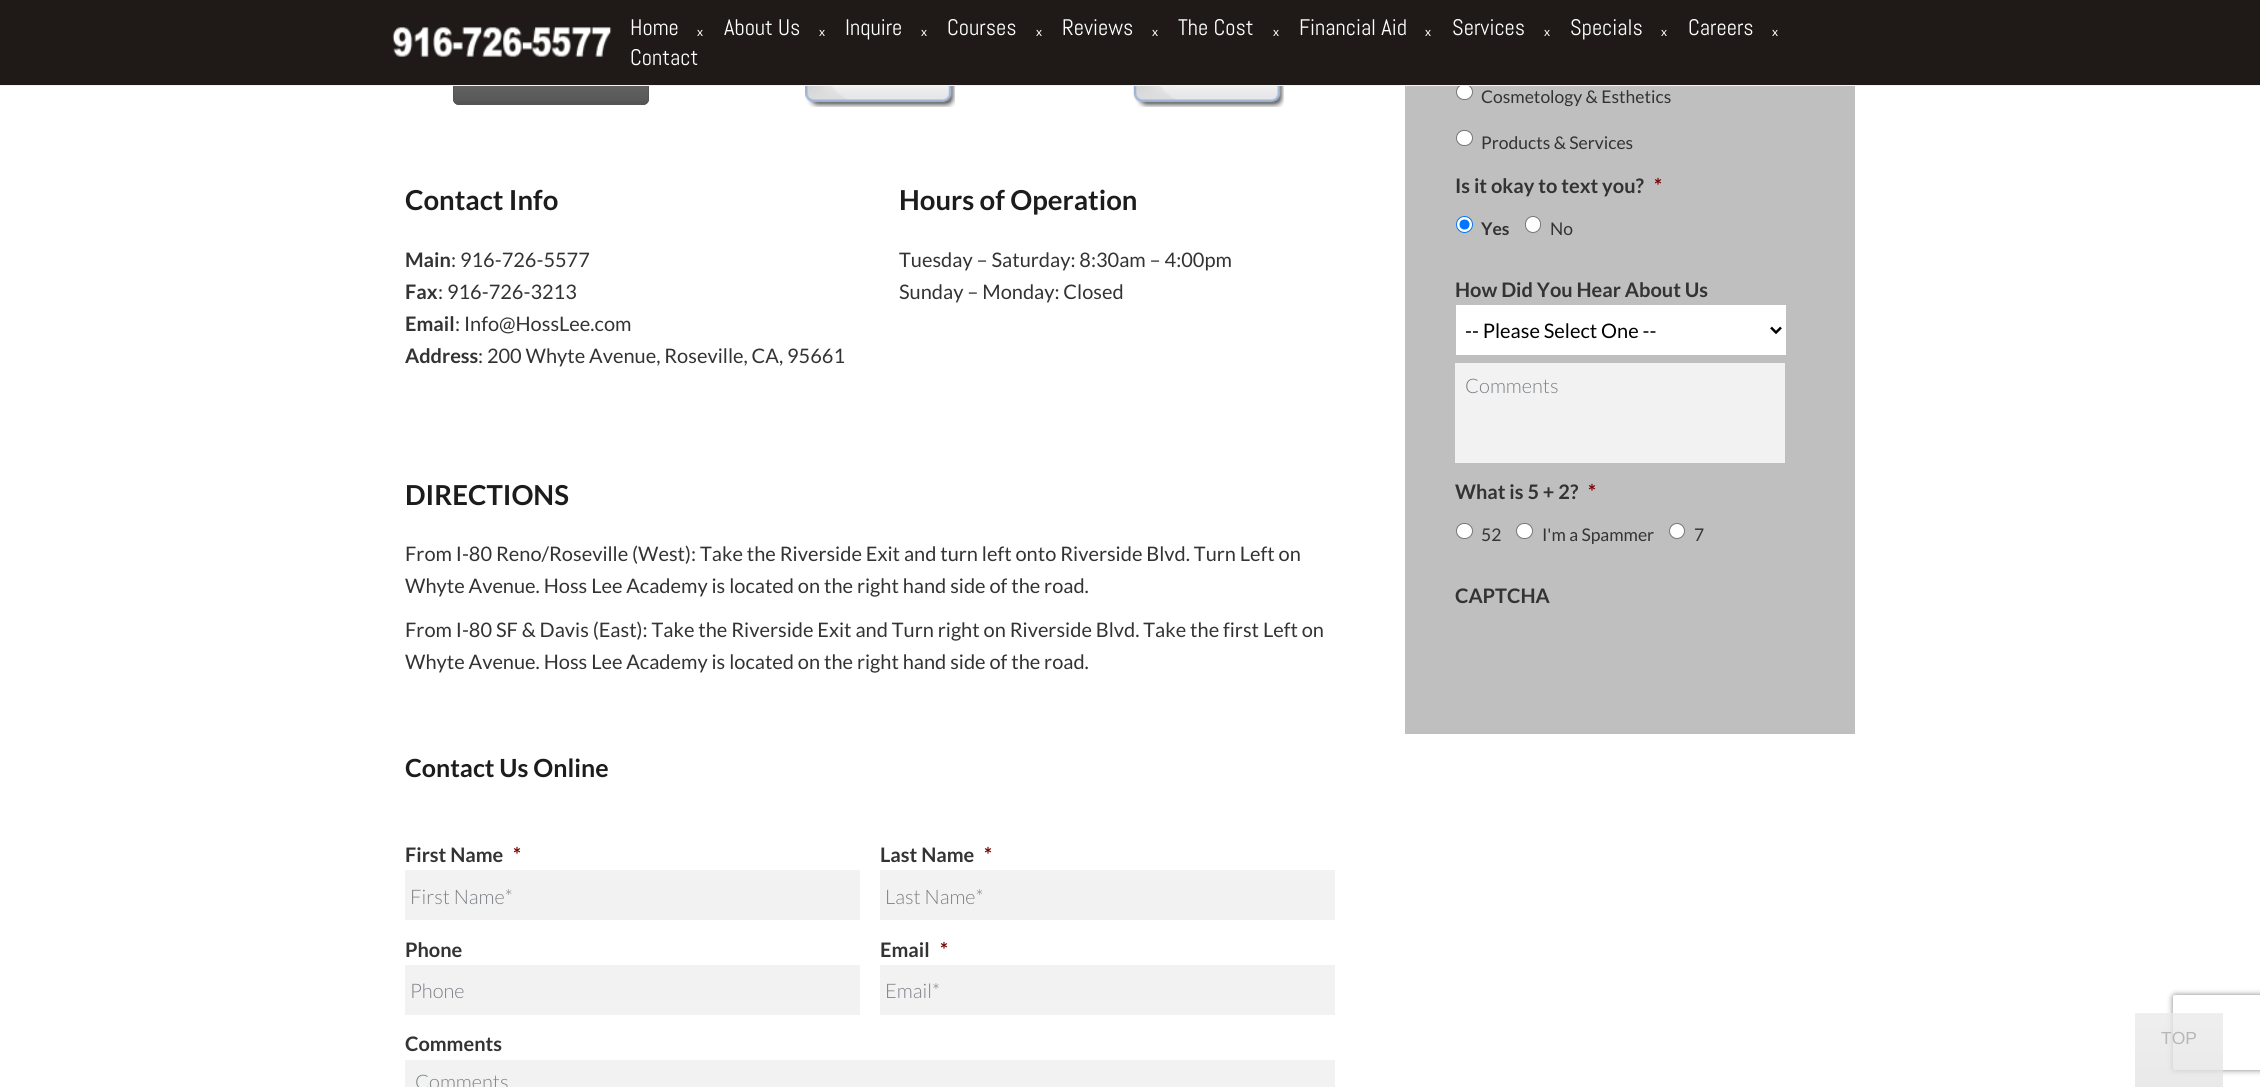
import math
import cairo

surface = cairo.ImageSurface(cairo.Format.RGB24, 2260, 1087)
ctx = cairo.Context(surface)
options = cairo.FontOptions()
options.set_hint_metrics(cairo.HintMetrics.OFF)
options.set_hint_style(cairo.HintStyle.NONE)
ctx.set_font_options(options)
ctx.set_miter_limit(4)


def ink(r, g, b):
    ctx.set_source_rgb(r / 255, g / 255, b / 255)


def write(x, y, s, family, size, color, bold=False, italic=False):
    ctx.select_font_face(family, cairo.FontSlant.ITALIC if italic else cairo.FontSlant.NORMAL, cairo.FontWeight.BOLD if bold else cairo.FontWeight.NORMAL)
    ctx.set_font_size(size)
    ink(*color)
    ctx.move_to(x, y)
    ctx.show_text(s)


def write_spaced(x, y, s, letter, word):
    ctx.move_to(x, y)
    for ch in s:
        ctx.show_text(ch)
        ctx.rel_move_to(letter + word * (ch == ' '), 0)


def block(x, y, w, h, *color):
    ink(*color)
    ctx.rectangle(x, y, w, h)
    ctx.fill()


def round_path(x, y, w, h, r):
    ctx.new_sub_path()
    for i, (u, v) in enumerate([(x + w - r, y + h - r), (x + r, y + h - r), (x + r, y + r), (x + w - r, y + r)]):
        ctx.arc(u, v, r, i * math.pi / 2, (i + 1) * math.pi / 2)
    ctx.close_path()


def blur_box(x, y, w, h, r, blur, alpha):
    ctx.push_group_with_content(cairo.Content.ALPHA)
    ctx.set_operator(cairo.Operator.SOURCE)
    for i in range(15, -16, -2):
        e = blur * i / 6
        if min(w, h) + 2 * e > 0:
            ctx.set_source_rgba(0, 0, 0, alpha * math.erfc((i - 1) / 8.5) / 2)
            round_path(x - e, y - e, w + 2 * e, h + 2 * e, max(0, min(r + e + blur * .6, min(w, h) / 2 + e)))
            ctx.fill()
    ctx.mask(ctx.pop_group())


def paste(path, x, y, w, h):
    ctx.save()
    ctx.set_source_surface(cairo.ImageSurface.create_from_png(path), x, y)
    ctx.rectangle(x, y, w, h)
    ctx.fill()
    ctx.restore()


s1 = dict(family="Abel", size=22.5, color=(255, 255, 255))
s2 = dict(family="Lato", size=27.5, color=(28, 28, 28), bold=True)
s3 = dict(family="Lato", size=20, color=(51, 51, 51), bold=True)
s4 = dict(family="Lato", size=20, color=(51, 51, 51))
s5 = dict(family="Lato", size=25, color=(28, 28, 28), bold=True)
s6 = dict(family="Lato", size=20, color=(121, 0, 0), bold=True)
s7 = dict(family="Lato Light", size=20, color=(123, 128, 133))
s8 = dict(family="Lato", size=17.5, color=(51, 51, 51))
s9 = dict(family="Lato", size=17.5, color=(51, 51, 51), bold=True)
s10 = dict(family="Lato", size=20, color=(0, 0, 0))
s11 = dict(family="Liberation Sans", size=17.5, color=(183, 183, 183))

ink(255, 255, 255)
ctx.paint()
ink(85, 85, 85)
round_path(453, 46, 196, 59, 6)
ctx.fill()
gradient = cairo.LinearGradient(551, 47, 551, 104)
gradient.add_color_stop_rgba(0, 1, 1, 1, 0.2)
gradient.add_color_stop_rgba(1, 1, 1, 1, 0.01)
ctx.set_source(gradient)
ctx.rectangle(453, 86, 196, 15)
ctx.fill()
round_path(453.5, 46.5, 195, 58, 5.5)
ink(85, 85, 85)
ctx.set_line_width(1)
ctx.stroke()
block(1405, 86, 450, 648, 191, 191, 191)
ink(255, 255, 255)
round_path(1456.5, 84.5, 16, 15, 7.5)
ctx.fill_preserve()
ink(118, 118, 118)
ctx.stroke()
block(0, 0, 2260, 85, 31, 26, 23)
block(0, 85, 2260, 1, 245, 245, 245)
paste("pic1.png", 392, 27, 220, 30)
write(630, 35, "Home", **s1)
ctx.select_font_face("Lato")
ctx.set_font_size(12)
write_spaced(697, 36, "x", 2, 0)
write(724, 35, "About Us", **s1)
ctx.select_font_face("Lato")
ctx.set_font_size(12)
write_spaced(819, 36, "x", 2, 0)
write(845, 35, "Inquire", **s1)
ctx.select_font_face("Lato")
ctx.set_font_size(12)
write_spaced(921, 36, "x", 2, 0)
write(947, 35, "Courses", **s1)
ctx.select_font_face("Lato")
ctx.set_font_size(12)
write_spaced(1036, 36, "x", 2, 0)
write(1062, 35, "Reviews", **s1)
ctx.select_font_face("Lato")
ctx.set_font_size(12)
write_spaced(1152, 36, "x", 2, 0)
write(1178, 35, "The Cost", **s1)
ctx.select_font_face("Lato")
ctx.set_font_size(12)
write_spaced(1273, 36, "x", 2, 0)
write(1299, 35, "Financial Aid", **s1)
ctx.select_font_face("Lato")
ctx.set_font_size(12)
write_spaced(1425, 36, "x", 2, 0)
write(1452, 35, "Services", **s1)
ctx.select_font_face("Lato")
ctx.set_font_size(12)
write_spaced(1544, 36, "x", 2, 0)
write(1570, 35, "Specials", **s1)
ctx.select_font_face("Lato")
ctx.set_font_size(12)
write_spaced(1661, 36, "x", 2, 0)
write(1688, 35, "Careers", **s1)
ctx.select_font_face("Lato")
ctx.set_font_size(12)
write_spaced(1772, 36, "x", 2, 0)
write(630, 65, "Contact", **s1)
paste("pic2.png", 805, 86, 150, 21)
paste("pic3.png", 1133, 86, 151, 21)
write(405, 210, "Contact Info", **s2)
write(405, 267, "Main", **s3)
write(451, 267, ": 916-726-5577", **s4)
write(405, 299, "Fax", **s3)
write(438, 299, ": 916-726-3213", **s4)
write(405, 331, "Email", **s3)
write(455, 331, ": Info@HossLee.com", **s4)
write(405, 363, "Address", **s3)
write(478, 363, ": 200 Whyte Avenue, Roseville, CA, 95661", **s4)
write(899, 210, "Hours of Operation", **s2)
write(899, 267, "Tuesday – Saturday: 8:30am – 4:00pm", **s4)
write(899, 299, "Sunday – Monday: Closed", **s4)
write(405, 505, "DIRECTIONS", **s2)
write(405, 561, "From I-80 Reno/Roseville (West): Take the Riverside Exit and turn left onto Riverside Blvd. Turn Left on", **s4)
write(405, 593, "Whyte Avenue. Hoss Lee Academy is located on the right hand side of the road.", **s4)
write(405, 637, "From I-80 SF & Davis (East): Take the Riverside Exit and Turn right on Riverside Blvd. Take the first Left on", **s4)
write(405, 669, "Whyte Avenue. Hoss Lee Academy is located on the right hand side of the road.", **s4)
write(405, 777, "Contact Us Online", **s5)
write(405, 862, "First Name", **s3)
write(513, 862, "*", **s6)
block(405, 870, 455, 50, 242, 242, 242)
write(410, 904, "First Name*", **s7)
write(880, 862, "Last Name", **s3)
write(984, 862, "*", **s6)
block(880, 870, 455, 50, 242, 242, 242)
write(885, 904, "Last Name*", **s7)
write(405, 957, "Phone", **s3)
block(405, 965, 455, 50, 242, 242, 242)
write(410, 998, "Phone", **s7)
write(880, 957, "Email", **s3)
write(940, 957, "*", **s6)
block(880, 965, 455, 50, 242, 242, 242)
write(885, 998, "Email*", **s7)
write(405, 1051, "Comments", **s3)
block(405, 1060, 930, 27, 242, 242, 242)
write(415, 1089, "Comments", **s7)
write(1481, 103, "Cosmetology & Esthetics", **s8)
ink(255, 255, 255)
round_path(1456.5, 130.5, 16, 15, 7.5)
ctx.fill_preserve()
ink(118, 118, 118)
ctx.stroke()
write(1481, 149, "Products & Services", **s8)
write(1455, 193, "Is it okay to text you?", **s3)
write(1654, 193, "*", **s6)
ink(255, 255, 255)
ctx.new_path()
ctx.arc(1464.5, 224.5, 8, 0, 2 * math.pi)
ctx.fill_preserve()
ink(0, 117, 255)
ctx.stroke()
ctx.arc(1464.5, 224.5, 5, 0, 2 * math.pi)
ctx.fill()
write(1481, 235, "Yes", **s9)
ink(255, 255, 255)
round_path(1525.5, 216.5, 15, 16, 7.5)
ctx.fill_preserve()
ink(118, 118, 118)
ctx.stroke()
write(1550, 235, "No", **s8)
write(1455, 297, "How Did You Hear About Us", **s3)
block(1456, 305, 330, 50, 255, 255, 255)
ctx.new_path()
ctx.move_to(1771, 327.5)
ctx.line_to(1776, 332.5)
ctx.line_to(1781, 327.5)
ink(0, 0, 0)
ctx.set_line_width(2.5)
ctx.stroke()
write(1465, 338, "-- Please Select One --", **s10)
block(1455, 363, 330, 100, 242, 242, 242)
write(1465, 393, "Comments", **s7)
write(1455, 499, "What is 5 + 2?", **s3)
write(1588, 499, "*", **s6)
ink(255, 255, 255)
round_path(1456.5, 523.5, 16, 15, 7.5)
ctx.fill_preserve()
ink(118, 118, 118)
ctx.set_line_width(1)
ctx.stroke()
write(1481, 541, "52", **s8)
ink(255, 255, 255)
round_path(1516.5, 523.5, 16, 15, 7.5)
ctx.fill_preserve()
ink(118, 118, 118)
ctx.stroke()
write(1542, 541, "I'm a Spammer", **s8)
ink(255, 255, 255)
ctx.new_path()
ctx.arc(1677, 531, 7.5, 0, 2 * math.pi)
ctx.fill_preserve()
ink(118, 118, 118)
ctx.stroke()
write(1694, 541, "7", **s8)
write(1455, 603, "CAPTCHA", **s3)
ctx.save()
ctx.set_fill_rule(cairo.FillRule.EVEN_ODD)
ctx.new_path()
ctx.move_to(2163, 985)
ctx.line_to(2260, 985)
ctx.line_to(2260, 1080)
ctx.line_to(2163, 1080)
ctx.close_path()
ctx.move_to(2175.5, 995)
ctx.line_to(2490.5, 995)
ctx.curve_to(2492, 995, 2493, 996, 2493, 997.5)
ctx.line_to(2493, 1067.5)
ctx.curve_to(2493, 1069, 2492, 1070, 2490.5, 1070)
ctx.line_to(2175.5, 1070)
ctx.curve_to(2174, 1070, 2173, 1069, 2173, 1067.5)
ctx.line_to(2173, 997.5)
ctx.curve_to(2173, 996, 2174, 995, 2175.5, 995)
ctx.close_path()
ctx.clip()
ink(128, 128, 128)
blur_box(2173, 995, 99, 75, 2.5, 3, 1)
ctx.restore()
ctx.set_source_rgba(0.902, 0.902, 0.902, 0.5)
ctx.rectangle(2135, 1013, 88, 74)
ctx.fill()
gradient = cairo.LinearGradient(2179, 1013, 2179, 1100)
gradient.add_color_stop_rgba(0, 0.922, 0.922, 0.922, 0.5)
gradient.add_color_stop_rgba(1, 0.871, 0.871, 0.871, 0.5)
ctx.set_source(gradient)
ctx.rectangle(2135, 1013, 88, 74)
ctx.fill()
write(2161, 1044, "TOP", **s11)
surface.write_to_png("screenshot.png")
